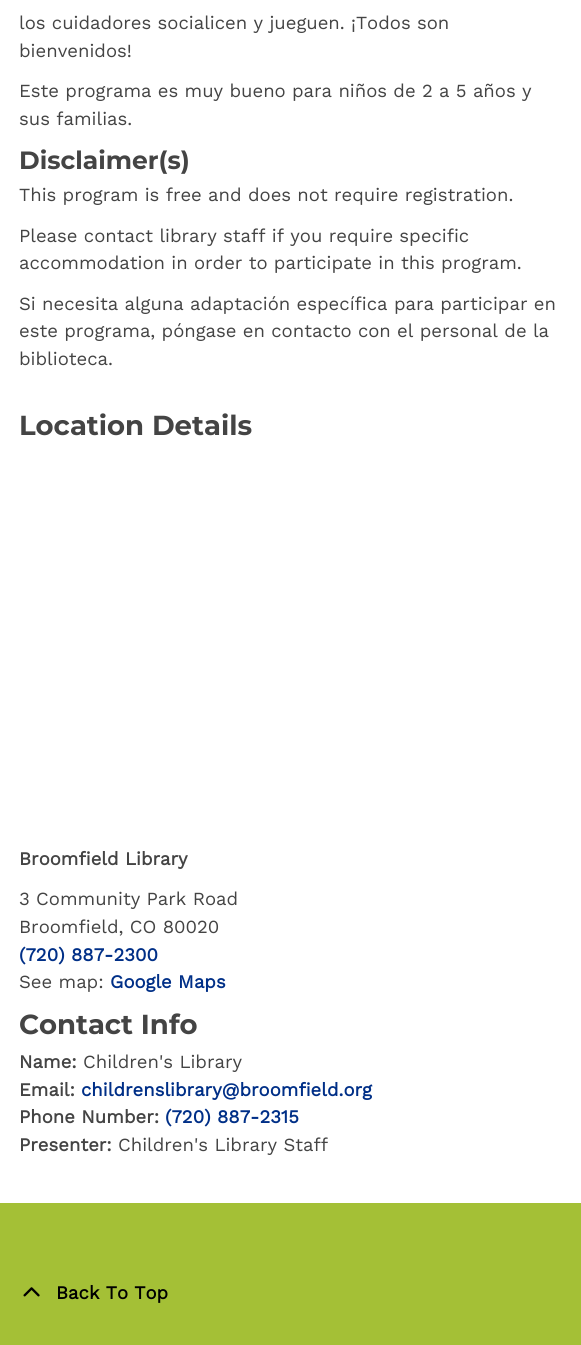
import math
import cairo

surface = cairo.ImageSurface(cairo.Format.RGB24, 581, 1345)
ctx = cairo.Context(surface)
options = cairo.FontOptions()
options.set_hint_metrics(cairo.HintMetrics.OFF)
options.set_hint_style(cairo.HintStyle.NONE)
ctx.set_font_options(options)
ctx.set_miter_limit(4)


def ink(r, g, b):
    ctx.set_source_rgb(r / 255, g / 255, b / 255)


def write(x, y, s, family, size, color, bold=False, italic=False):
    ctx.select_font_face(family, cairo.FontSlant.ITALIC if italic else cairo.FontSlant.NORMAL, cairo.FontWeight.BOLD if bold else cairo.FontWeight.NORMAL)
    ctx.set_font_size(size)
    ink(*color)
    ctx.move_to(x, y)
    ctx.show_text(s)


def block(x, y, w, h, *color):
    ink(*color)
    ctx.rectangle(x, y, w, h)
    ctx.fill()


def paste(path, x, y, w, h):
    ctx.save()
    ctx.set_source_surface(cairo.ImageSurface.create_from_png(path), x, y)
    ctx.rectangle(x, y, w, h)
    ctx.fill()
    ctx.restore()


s1 = dict(family="Work Sans", size=18.5, color=(68, 68, 68))
s2 = dict(family="Montserrat", size=25, color=(68, 68, 68), bold=True)
s3 = dict(family="Montserrat", size=27.5, color=(68, 68, 68), bold=True)
s4 = dict(family="Work Sans", size=18.5, color=(68, 68, 68), bold=True)
s5 = dict(family="Work Sans", size=18.5, color=(0, 47, 135), bold=True)
s6 = dict(family="Work Sans", size=18.5, color=(0, 0, 0), bold=True)

ink(255, 255, 255)
ctx.paint()
write(19, 29, "los cuidadores socialicen y jueguen. ¡Todos son", **s1)
write(19, 57, "bienvenidos!", **s1)
write(19, 97, "Este programa es muy bueno para niños de 2 a 5 años y", **s1)
write(19, 125, "sus familias.", **s1)
write(19, 169, "Disclaimer(s)", **s2)
write(19, 201, "This program is free and does not require registration.", **s1)
write(19, 242, "Please contact library staff if you require specific", **s1)
write(19, 269, "accommodation in order to participate in this program.", **s1)
write(19, 310, "Si necesita alguna adaptación específica para participar en", **s1)
write(19, 337, "este programa, póngase en contacto con el personal de la", **s1)
write(19, 365, "biblioteca.", **s1)
write(19, 435, "Location Details", **s3)
write(19, 865, "Broomfield Library", **s4)
write(19, 905, "3 Community Park Road", **s1)
write(19, 933, "Broomfield, CO 80020", **s1)
write(19, 961, "(720) 887-2300", **s5)
write(19, 988, "See map:", **s1)
write(110, 988, "Google Maps", **s5)
write(19, 1034, "Contact Info", **s3)
write(19, 1068, "Name:", **s4)
write(83, 1068, "Children's Library", **s1)
write(19, 1096, "Email:", **s4)
write(81, 1096, "childrenslibrary@broomfield.org", **s5)
write(19, 1123, "Phone Number:", **s4)
write(165, 1123, "(720) 887-2315", **s5)
write(19, 1151, "Presenter:", **s4)
write(118, 1151, "Children's Library Staff", **s1)
block(0, 1203, 581, 142, 164, 192, 54)
paste("pic1.png", 23, 1287, 17, 10)
write(56, 1299, "Back To Top", **s6)
surface.write_to_png("screenshot.png")
